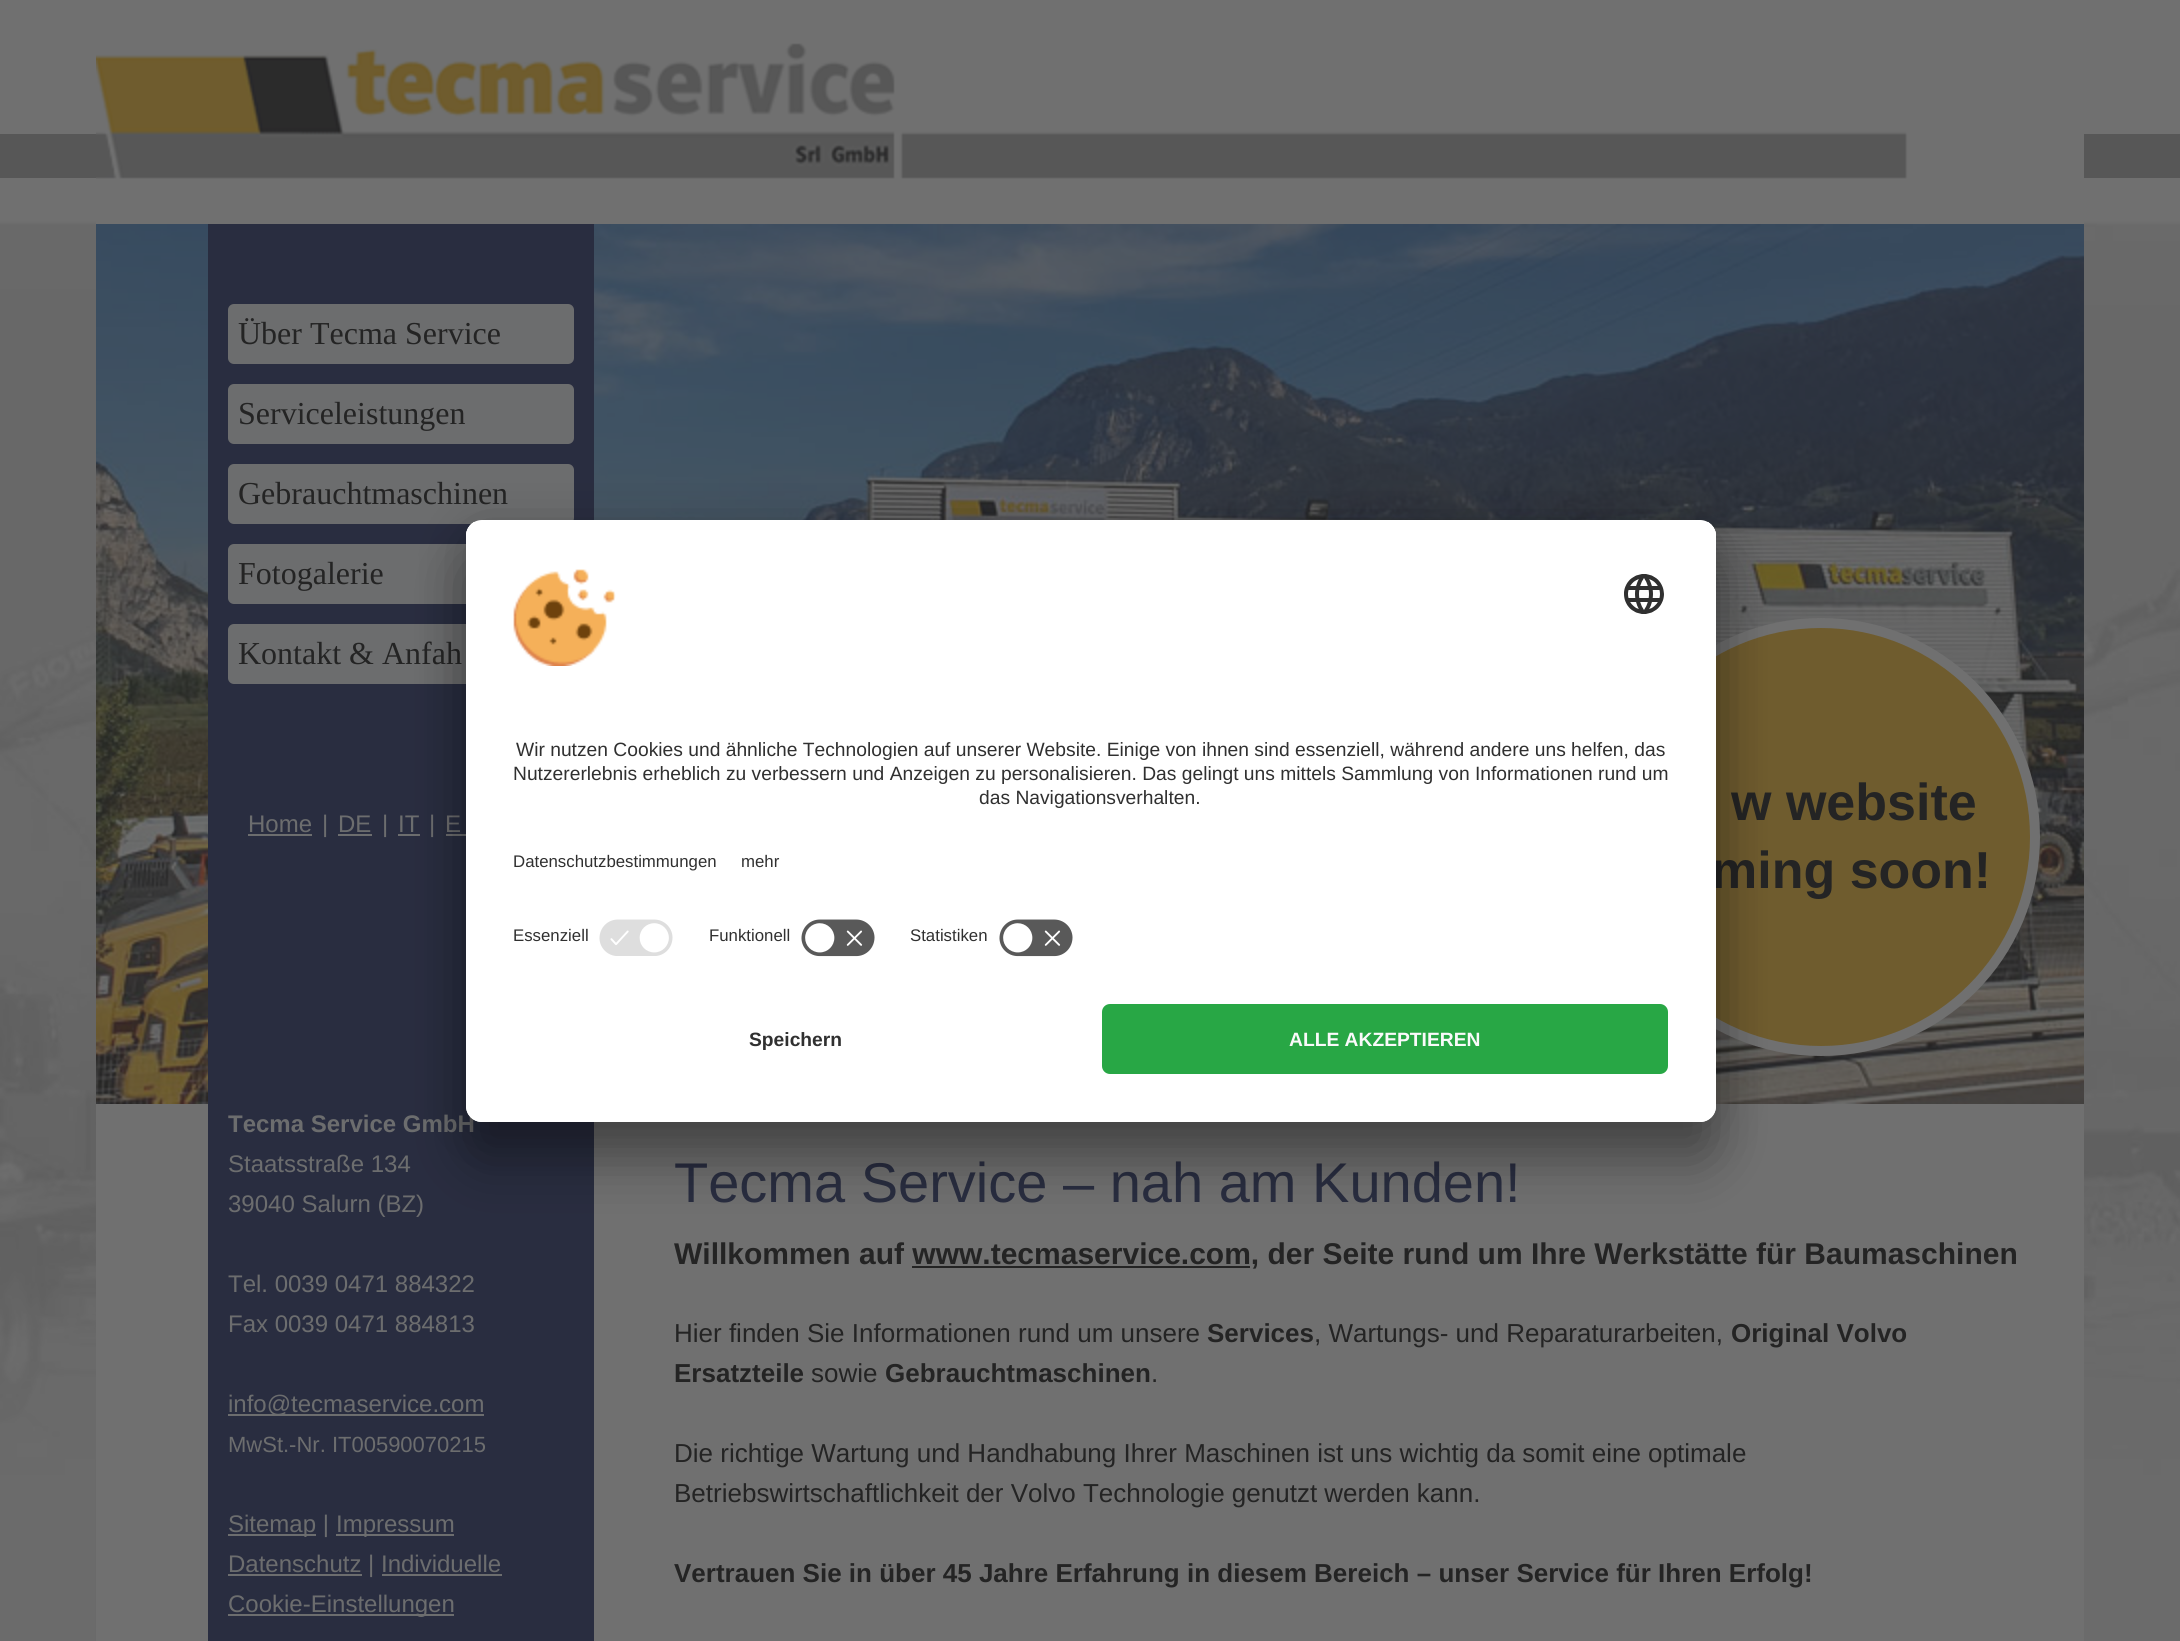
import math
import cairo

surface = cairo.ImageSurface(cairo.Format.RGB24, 2180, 1641)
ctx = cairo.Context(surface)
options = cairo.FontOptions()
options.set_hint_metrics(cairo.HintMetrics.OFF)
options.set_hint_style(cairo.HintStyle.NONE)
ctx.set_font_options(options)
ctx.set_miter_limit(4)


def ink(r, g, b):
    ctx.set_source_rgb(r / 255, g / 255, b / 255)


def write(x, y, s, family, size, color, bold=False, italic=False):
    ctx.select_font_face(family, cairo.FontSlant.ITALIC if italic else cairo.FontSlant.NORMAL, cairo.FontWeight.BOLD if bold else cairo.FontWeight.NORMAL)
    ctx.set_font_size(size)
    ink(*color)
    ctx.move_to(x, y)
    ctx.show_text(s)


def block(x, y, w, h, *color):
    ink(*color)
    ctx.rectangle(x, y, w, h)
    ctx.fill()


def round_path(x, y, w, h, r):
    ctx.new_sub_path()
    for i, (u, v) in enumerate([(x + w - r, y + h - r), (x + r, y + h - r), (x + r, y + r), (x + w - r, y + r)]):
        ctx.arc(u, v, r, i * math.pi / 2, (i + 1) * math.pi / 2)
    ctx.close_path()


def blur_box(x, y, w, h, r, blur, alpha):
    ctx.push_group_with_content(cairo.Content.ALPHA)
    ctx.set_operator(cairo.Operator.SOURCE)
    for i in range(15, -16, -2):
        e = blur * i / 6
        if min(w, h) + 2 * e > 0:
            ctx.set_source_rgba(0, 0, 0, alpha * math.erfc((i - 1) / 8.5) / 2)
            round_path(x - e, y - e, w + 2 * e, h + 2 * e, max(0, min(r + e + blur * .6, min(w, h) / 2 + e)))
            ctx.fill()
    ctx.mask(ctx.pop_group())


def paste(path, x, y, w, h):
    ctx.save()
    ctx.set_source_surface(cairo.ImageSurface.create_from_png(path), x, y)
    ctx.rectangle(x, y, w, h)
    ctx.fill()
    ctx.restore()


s1 = dict(family="Liberation Serif", size=32, color=(36, 36, 36))
s2 = dict(family="Liberation Sans", size=24, color=(108, 109, 110))
s3 = dict(family="Liberation Sans", size=24, color=(108, 109, 110), bold=True)
s4 = dict(family="Liberation Sans", size=22, color=(108, 109, 110))
s5 = dict(family="Liberation Sans", size=52, color=(36, 36, 36), bold=True)
s6 = dict(family="Liberation Sans", size=56, color=(41, 45, 64))
s7 = dict(family="Liberation Sans", size=30, color=(36, 36, 36), bold=True)
s8 = dict(family="Liberation Sans", size=26, color=(36, 36, 36))
s9 = dict(family="Liberation Sans", size=26, color=(36, 36, 36), bold=True)
s10 = dict(family="Liberation Sans", size=19.25, color=(48, 48, 48))
s11 = dict(family="Liberation Sans", size=16.8, color=(48, 48, 48))
s12 = dict(family="Liberation Sans", size=19.25, color=(48, 48, 48), bold=True)
s13 = dict(family="Liberation Sans", size=19.25, color=(250, 250, 250), bold=True)

ink(255, 255, 255)
ctx.paint()
paste("pic1.png", 0, 0, 2180, 1641)
block(0, 134, 2180, 44, 87, 87, 87)
block(96, 1104, 1988, 537, 112, 112, 112)
paste("pic2.png", 96, 224, 1988, 880)
block(208, 224, 386, 1417, 41, 45, 64)
ink(108, 109, 110)
round_path(228, 304, 346, 60, 6)
ctx.fill()
write(238, 344, "Über Tecma Service", **s1)
ink(108, 109, 110)
round_path(228, 384, 346, 60, 6)
ctx.fill()
write(238, 424, "Serviceleistungen", **s1)
ink(108, 109, 110)
round_path(228, 464, 346, 60, 6)
ctx.fill()
write(238, 504, "Gebrauchtmaschinen", **s1)
ink(108, 109, 110)
round_path(228, 544, 346, 60, 6)
ctx.fill()
write(238, 584, "Fotogalerie", **s1)
ink(108, 109, 110)
round_path(228, 624, 346, 60, 6)
ctx.fill()
write(238, 664, "Kontakt & Anfah", **s1)
write(248, 832, "Home", **s2)
block(248, 834, 64, 2, 108, 109, 110)
write(322, 832, "|", **s2)
write(338, 832, "DE", **s2)
block(338, 834, 34, 2, 108, 109, 110)
write(382, 832, "|", **s2)
write(398, 832, "IT", **s2)
block(398, 834, 22, 2, 108, 109, 110)
write(429, 832, "|", **s2)
write(445, 832, "E", **s2)
block(446, 834, 20, 2, 108, 109, 110)
write(228, 1132, "Tecma Service GmbH", **s3)
write(228, 1172, "Staatsstraße 134", **s2)
write(228, 1212, "39040 Salurn (BZ)", **s2)
write(228, 1292, "Tel. 0039 0471 884322", **s2)
write(228, 1332, "Fax 0039 0471 884813", **s2)
block(228, 1414, 256, 2, 108, 109, 110)
write(228, 1412, "info@tecmaservice.com", **s2)
write(228, 1452, "MwSt.-Nr. IT00590070215", **s4)
block(228, 1534, 88, 2, 108, 109, 110)
write(228, 1532, "Sitemap |", **s2)
block(336, 1534, 118, 2, 108, 109, 110)
write(336, 1532, "Impressum", **s2)
block(228, 1574, 134, 2, 108, 109, 110)
write(228, 1572, "Datenschutz | Individuelle", **s2)
block(228, 1614, 226, 2, 108, 109, 110)
write(228, 1612, "Cookie-Einstellungen", **s2)
block(382, 1574, 120, 2, 108, 109, 110)
block(96, 134, 1988, 90, 112, 112, 112)
paste("pic3.png", 96, 43, 1812, 136)
ink(111, 92, 46)
ctx.arc(1821, 837, 214, 0, 2 * math.pi)
ctx.fill_preserve()
ink(112, 112, 112)
ctx.set_line_width(10)
ctx.stroke()
write(1731, 820, "w website", **s5)
write(1711, 888, "ming soon!", **s5)
write(674, 1202, "Tecma Service – nah am Kunden!", **s6)
write(674, 1264, "Willkommen auf www.tecmaservice.com, der Seite rund um Ihre Werkstätte für Baumaschinen", **s7)
block(912, 1266, 338, 2, 36, 36, 36)
write(674, 1342, "Hier finden Sie Informationen rund um unsere", **s8)
write(1207, 1342, "Services", **s9)
write(1314, 1342, ", Wartungs- und Reparaturarbeiten,", **s8)
write(1731, 1342, "Original Volvo", **s9)
write(674, 1382, "Ersatzteile", **s9)
write(811, 1382, "sowie", **s8)
write(885, 1382, "Gebrauchtmaschinen", **s9)
write(1151, 1382, ".", **s8)
write(674, 1462, "Die richtige Wartung und Handhabung Ihrer Maschinen ist uns wichtig da somit eine optimale", **s8)
write(674, 1502, "Betriebswirtschaftlichkeit der Volvo Technologie genutzt werden kann.", **s8)
write(674, 1582, "Vertrauen Sie in über 45 Jahre Erfahrung in diesem Bereich – unser Service für Ihren Erfolg!", **s9)
ink(0, 0, 0)
blur_box(466, 560, 1250, 602, 16, 28, 0.3)
blur_box(466, 530, 1250, 602, 16, 26, 0.22)
ink(255, 255, 255)
round_path(466, 520, 1250, 602, 16)
ctx.fill()
ctx.save()
round_path(466, 520, 1250, 602, 16)
ctx.clip()
ctx.new_path()
ctx.move_to(482, 520)
ctx.line_to(1700, 520)
ctx.curve_to(1709, 520, 1716, 527, 1716, 536)
ctx.line_to(1716, 988)
ctx.line_to(466, 988)
ctx.line_to(466, 536)
ctx.curve_to(466, 527, 473, 520, 482, 520)
ctx.close_path()
ctx.clip()
block(466, 522, 1250, 466, 255, 255, 255)
block(466, 522, 1250, 386, 255, 255, 255)
ctx.restore()
paste("pic4.png", 513, 569, 103, 97)
paste("pic5.png", 1624, 574, 40, 40)
write(516, 756, "Wir nutzen Cookies und ähnliche Technologien auf unserer Website. Einige von ihnen sind essenziell, während andere uns helfen, das", **s10)
write(513, 780, "Nutzererlebnis erheblich zu verbessern und Anzeigen zu personalisieren. Das gelingt uns mittels Sammlung von Informationen rund um", **s10)
write(979, 804, "das Navigationsverhalten.", **s10)
write(513, 867, "Datenschutzbestimmungen", **s11)
write(741, 867, "mehr", **s11)
write(513, 941, "Essenziell", **s11)
paste("pic6.png", 599, 919, 74, 37)
write(709, 941, "Funktionell", **s11)
paste("pic7.png", 801, 919, 74, 38)
write(910, 941, "Statistiken", **s11)
paste("pic7.png", 999, 919, 74, 38)
ink(255, 255, 255)
ctx.new_path()
ctx.move_to(466, 988)
ctx.line_to(1716, 988)
ctx.line_to(1716, 1106)
ctx.curve_to(1716, 1115, 1709, 1122, 1700, 1122)
ctx.line_to(482, 1122)
ctx.curve_to(473, 1122, 466, 1115, 466, 1106)
ctx.close_path()
ctx.fill()
write(749, 1046, "Speichern", **s12)
ink(40, 167, 69)
round_path(1102, 1004, 566, 70, 8)
ctx.fill()
write(1289, 1046, "ALLE AKZEPTIEREN", **s13)
surface.write_to_png("screenshot.png")
